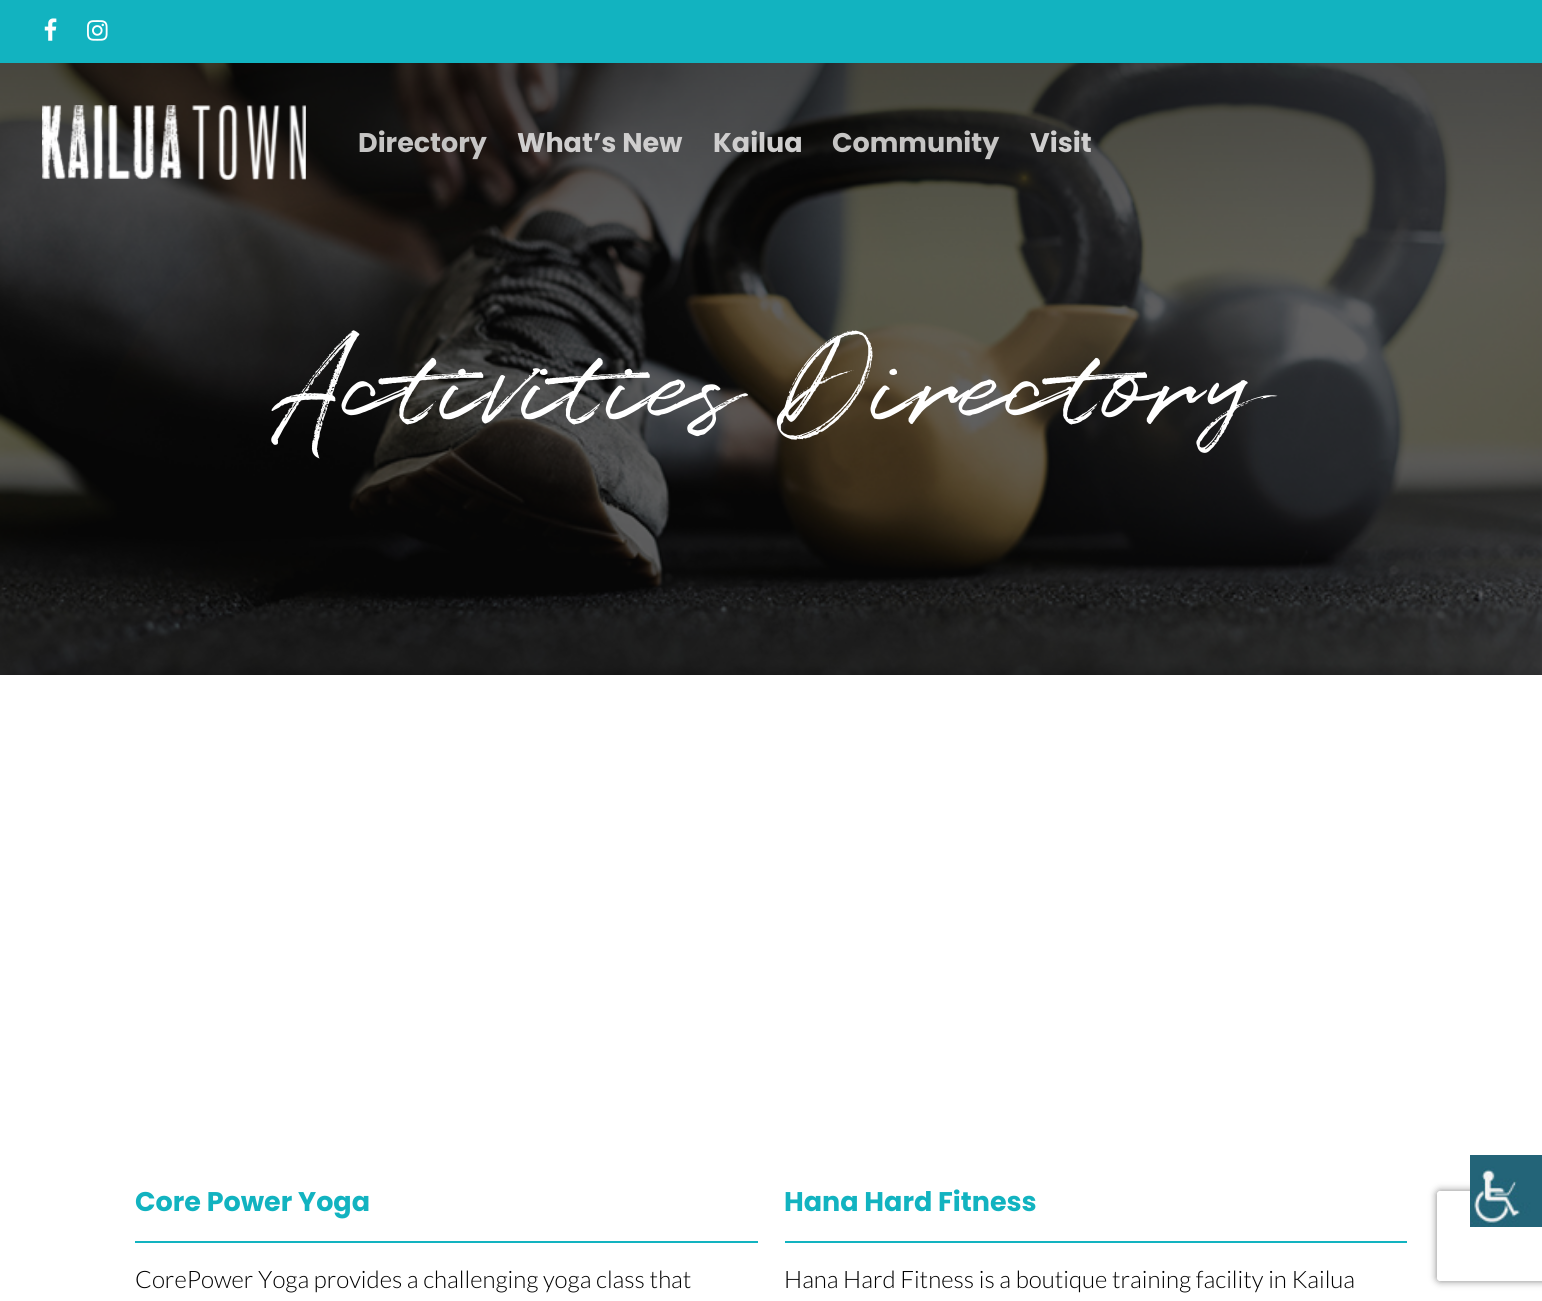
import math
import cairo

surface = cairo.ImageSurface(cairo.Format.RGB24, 1542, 1301)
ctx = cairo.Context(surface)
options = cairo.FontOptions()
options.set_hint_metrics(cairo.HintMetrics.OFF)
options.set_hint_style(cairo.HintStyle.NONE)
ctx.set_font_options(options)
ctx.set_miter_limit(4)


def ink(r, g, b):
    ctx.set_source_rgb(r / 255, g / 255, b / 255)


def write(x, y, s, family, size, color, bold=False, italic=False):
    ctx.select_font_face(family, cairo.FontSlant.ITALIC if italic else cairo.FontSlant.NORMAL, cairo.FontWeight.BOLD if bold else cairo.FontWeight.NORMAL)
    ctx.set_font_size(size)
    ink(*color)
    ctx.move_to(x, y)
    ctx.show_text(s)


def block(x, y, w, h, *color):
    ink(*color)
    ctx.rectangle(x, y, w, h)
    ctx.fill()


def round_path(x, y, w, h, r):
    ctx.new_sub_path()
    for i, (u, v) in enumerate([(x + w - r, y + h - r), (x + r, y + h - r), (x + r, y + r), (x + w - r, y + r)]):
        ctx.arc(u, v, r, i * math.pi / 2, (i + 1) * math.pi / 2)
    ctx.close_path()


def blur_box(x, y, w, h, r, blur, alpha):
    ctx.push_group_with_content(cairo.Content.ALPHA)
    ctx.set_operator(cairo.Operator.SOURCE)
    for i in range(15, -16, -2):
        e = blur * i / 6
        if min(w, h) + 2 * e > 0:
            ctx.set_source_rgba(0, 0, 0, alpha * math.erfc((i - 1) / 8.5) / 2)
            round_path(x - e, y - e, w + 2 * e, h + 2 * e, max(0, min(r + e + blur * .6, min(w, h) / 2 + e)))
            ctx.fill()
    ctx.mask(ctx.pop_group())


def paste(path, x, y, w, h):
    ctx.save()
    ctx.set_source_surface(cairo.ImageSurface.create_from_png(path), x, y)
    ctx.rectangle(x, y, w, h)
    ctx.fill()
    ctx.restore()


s1 = dict(family="Poppins", size=27, color=(198, 197, 196), bold=True)
s2 = dict(family="Poppins", size=27, color=(207, 206, 206), bold=True)
s3 = dict(family="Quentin", size=120, color=(255, 255, 255))
s4 = dict(family="Poppins", size=27, color=(18, 179, 192), bold=True)
s5 = dict(family="Lato Light", size=24, color=(0, 0, 0))

ink(255, 255, 255)
ctx.paint()
block(0, 0, 1542, 63, 18, 179, 192)
paste("pic1.png", 44, 18, 13, 23)
paste("pic2.png", 87, 20, 21, 21)
paste("pic4.png", 0, 63, 1542, 612)
paste("pic3.png", 42, 105, 264, 75)
write(358, 152, "Directory", **s1)
write(517, 152, "What’s New", **s2)
write(713, 152, "Kailua", **s2)
write(832, 152, "Community", **s1)
write(1030, 152, "Visit", **s2)
write(274, 420, "Activities Directory", **s3)
write(135, 1211, "Core Power Yoga", **s4)
block(135, 1241, 623, 2, 18, 179, 192)
write(135, 1288, "CorePower Yoga provides a challenging yoga class that", **s5)
write(784, 1211, "Hana Hard Fitness", **s4)
block(785, 1241, 622, 2, 18, 179, 192)
write(784, 1288, "Hana Hard Fitness is a boutique training facility in Kailua", **s5)
ctx.save()
ctx.set_fill_rule(cairo.FillRule.EVEN_ODD)
ctx.new_path()
ctx.move_to(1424, 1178)
ctx.line_to(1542, 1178)
ctx.line_to(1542, 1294)
ctx.line_to(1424, 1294)
ctx.close_path()
ctx.move_to(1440, 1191)
ctx.line_to(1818, 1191)
ctx.curve_to(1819.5, 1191, 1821, 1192.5, 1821, 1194)
ctx.line_to(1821, 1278)
ctx.curve_to(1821, 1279.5, 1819.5, 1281, 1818, 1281)
ctx.line_to(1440, 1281)
ctx.curve_to(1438.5, 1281, 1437, 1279.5, 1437, 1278)
ctx.line_to(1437, 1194)
ctx.curve_to(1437, 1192.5, 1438.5, 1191, 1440, 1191)
ctx.close_path()
ctx.clip()
ink(128, 128, 128)
blur_box(1437, 1191, 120, 90, 3, 4, 1)
ctx.restore()
paste("pic5.png", 1470, 1155, 72, 72)
surface.write_to_png("screenshot.png")
